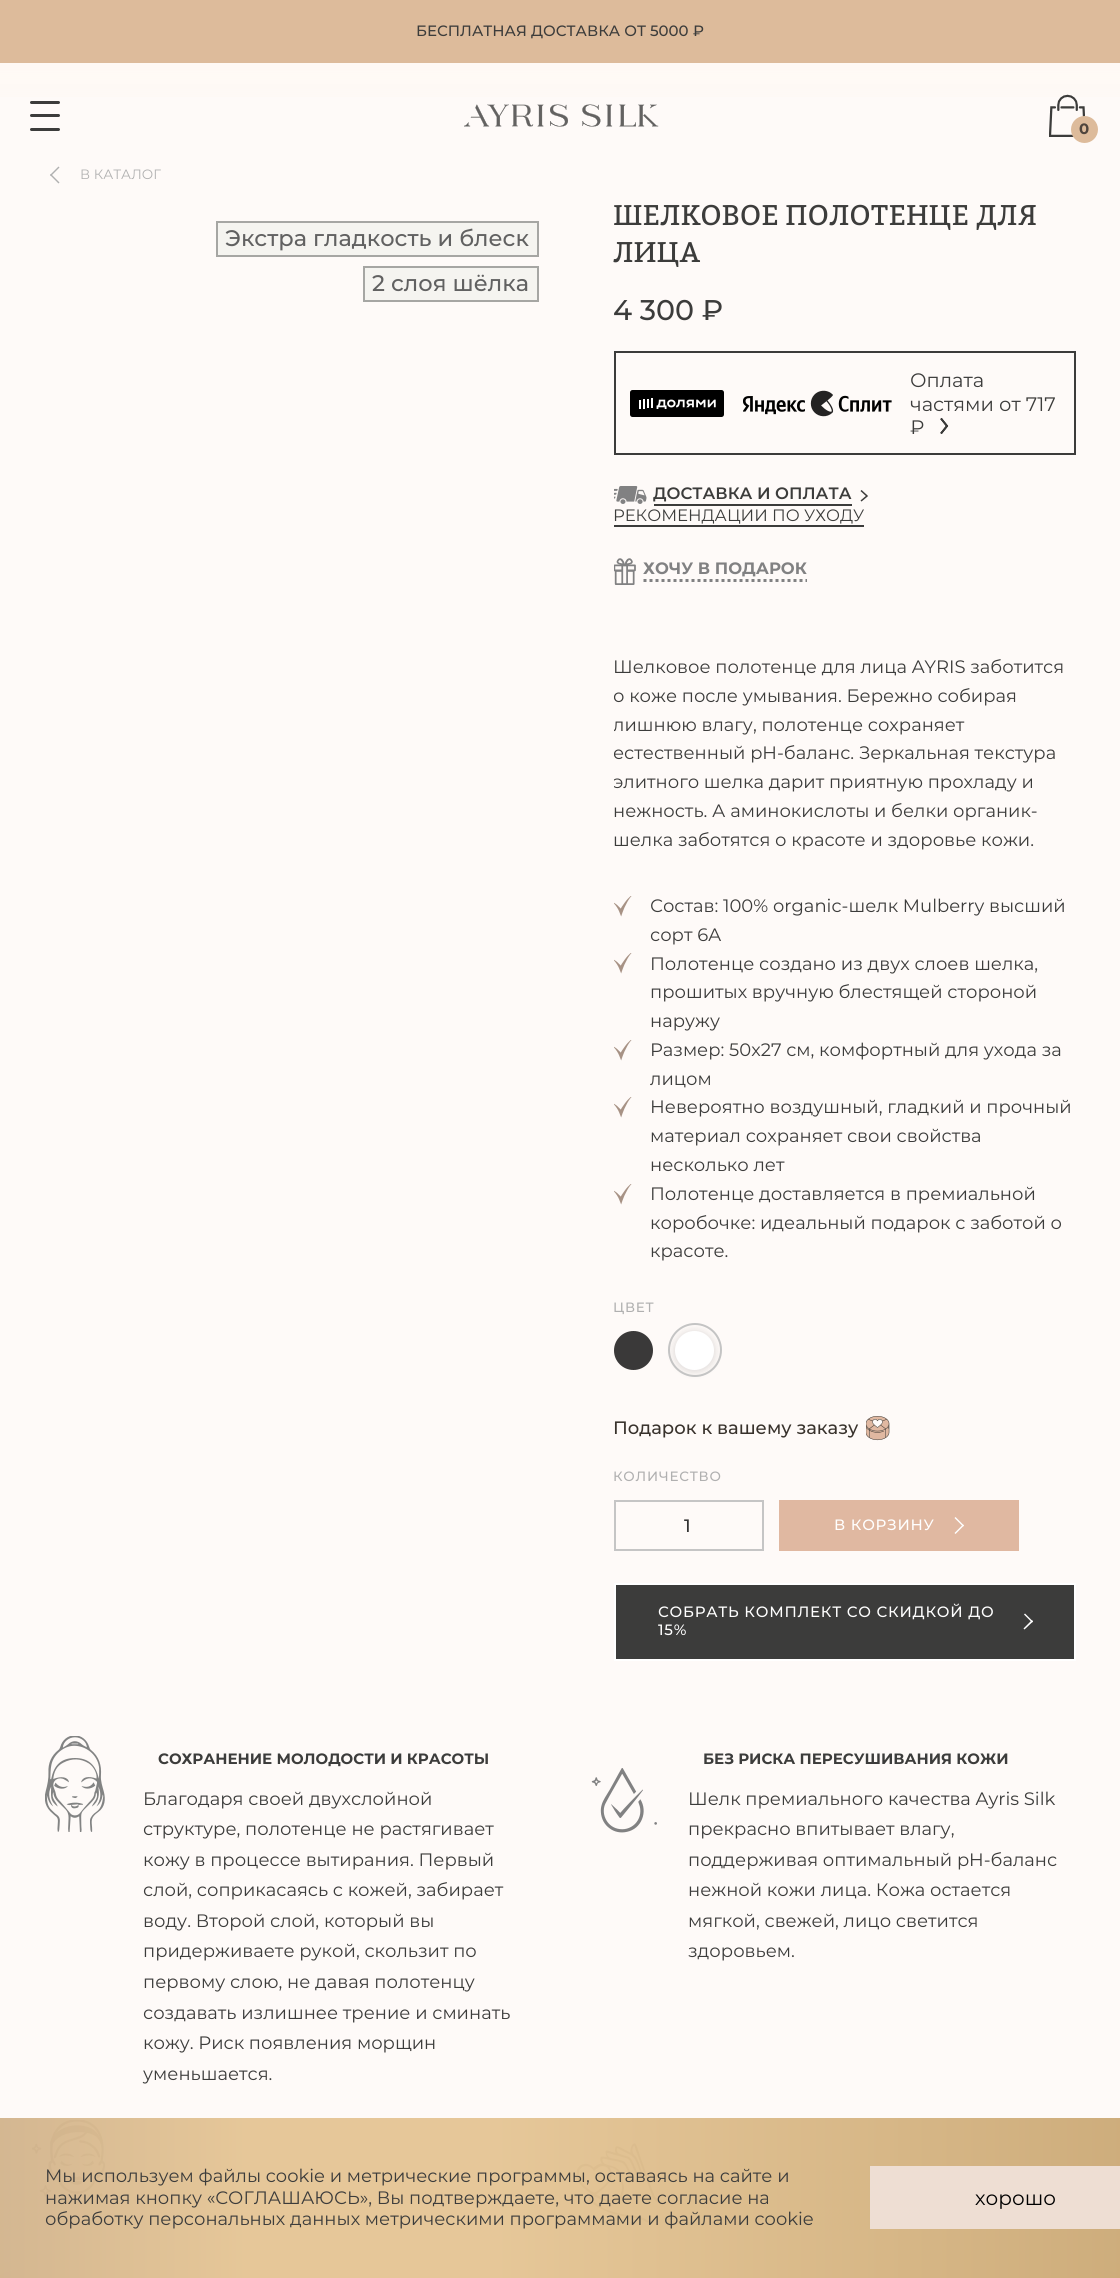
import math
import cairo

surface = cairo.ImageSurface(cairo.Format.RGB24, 1120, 2278)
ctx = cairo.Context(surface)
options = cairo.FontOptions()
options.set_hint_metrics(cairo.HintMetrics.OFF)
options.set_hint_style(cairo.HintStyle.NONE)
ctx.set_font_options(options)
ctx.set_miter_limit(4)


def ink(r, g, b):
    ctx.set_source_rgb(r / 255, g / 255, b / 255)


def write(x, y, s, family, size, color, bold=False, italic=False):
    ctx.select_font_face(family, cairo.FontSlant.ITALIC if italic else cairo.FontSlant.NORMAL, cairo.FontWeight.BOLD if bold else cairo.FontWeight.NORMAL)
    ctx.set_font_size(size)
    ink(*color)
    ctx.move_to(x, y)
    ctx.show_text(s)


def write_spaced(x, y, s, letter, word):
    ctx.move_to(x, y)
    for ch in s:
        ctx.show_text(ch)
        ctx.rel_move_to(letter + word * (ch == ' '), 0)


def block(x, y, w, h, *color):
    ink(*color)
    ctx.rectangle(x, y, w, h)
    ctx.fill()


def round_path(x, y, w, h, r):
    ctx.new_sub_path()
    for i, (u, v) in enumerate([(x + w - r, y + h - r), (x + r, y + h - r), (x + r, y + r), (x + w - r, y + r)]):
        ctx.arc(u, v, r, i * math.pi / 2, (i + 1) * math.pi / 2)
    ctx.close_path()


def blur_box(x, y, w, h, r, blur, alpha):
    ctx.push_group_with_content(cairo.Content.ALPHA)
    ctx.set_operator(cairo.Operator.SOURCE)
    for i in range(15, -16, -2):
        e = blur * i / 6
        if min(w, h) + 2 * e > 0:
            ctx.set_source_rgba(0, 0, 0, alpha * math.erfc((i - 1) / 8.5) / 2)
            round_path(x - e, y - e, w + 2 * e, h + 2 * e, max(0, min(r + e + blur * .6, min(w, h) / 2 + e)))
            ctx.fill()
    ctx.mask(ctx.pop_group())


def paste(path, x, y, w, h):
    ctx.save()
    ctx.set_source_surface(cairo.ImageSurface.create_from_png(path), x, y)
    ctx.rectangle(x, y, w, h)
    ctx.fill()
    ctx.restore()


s1 = dict(family="Montserrat Medium", size=15, color=(60, 60, 59))
s2 = dict(family="Montserrat", size=13.5, color=(176, 176, 176))
s3 = dict(family="Montserrat Medium", size=22.5, color=(97, 97, 97))
s4 = dict(family="Bitter", size=28.5, color=(60, 60, 59))
s5 = dict(family="Montserrat Medium", size=28.5, color=(60, 60, 59))
s6 = dict(family="Montserrat", size=19.5, color=(60, 60, 59))
s7 = dict(family="Montserrat SemiBold", size=16.5, color=(60, 60, 59))
s8 = dict(family="Montserrat", size=16.5, color=(60, 60, 59))
s9 = dict(family="Montserrat", size=16.5, color=(129, 129, 130), bold=True)
s10 = dict(family="Montserrat", size=18, color=(60, 60, 59))
s11 = dict(family="Montserrat Medium", size=18, color=(56, 50, 44))
s12 = dict(family="Montserrat", size=15, color=(60, 60, 59), bold=True)
s13 = dict(family="Montserrat", size=20, color=(0, 0, 0))

ink(254, 250, 248)
ctx.paint()
gradient = cairo.LinearGradient(560, 0, 560, 168)
gradient.add_color_stop_rgba(0, 1, 0.976, 0.953, 1)
gradient.add_color_stop_rgba(1, 1, 0.976, 0.953, 0)
ctx.set_source(gradient)
ctx.rectangle(0, 63, 1120, 34)
ctx.fill()
block(0, 0, 1120, 63, 221, 187, 155)
write(416, 36, "БЕСПЛАТНАЯ ДОСТАВКА ОТ 5000 ₽", **s1)
round_path(30, 101, 30, 3, 1.5)
ctx.fill()
round_path(30, 114, 30, 3, 1.5)
ctx.fill()
round_path(30, 128, 30, 3, 1.5)
ctx.fill()
paste("pic1.png", 464, 104, 195, 23)
paste("pic2.png", 1049, 94, 37, 43)
ink(221, 187, 155)
ctx.arc(1084.5, 129.5, 13.5, 0, 2 * math.pi)
ctx.fill()
ctx.select_font_face("Montserrat", cairo.FontSlant.NORMAL, cairo.FontWeight.BOLD)
ink(79, 69, 61)
write_spaced(1079, 134, "0", 1, 0)
ink(176, 176, 176)
ctx.new_path()
ctx.move_to(58.5, 183.5)
ctx.line_to(50, 175)
ctx.line_to(51, 174)
ctx.line_to(59.5, 182.5)
ctx.close_path()
ctx.fill()
ctx.new_path()
ctx.move_to(51, 176)
ctx.line_to(50, 175)
ctx.line_to(58.5, 166.5)
ctx.line_to(59.5, 167.5)
ctx.close_path()
ctx.fill()
write(80, 179, "В КАТАЛОГ", **s2)
ink(245, 244, 240)
ctx.rectangle(217, 222, 321, 34)
ctx.fill_preserve()
ink(166, 166, 163)
ctx.stroke()
write(225, 246, "Экстра гладкость и блеск", **s3)
ink(245, 244, 240)
ctx.rectangle(364, 267, 174, 34)
ctx.fill_preserve()
ink(166, 166, 163)
ctx.stroke()
write(372, 291, "2 слоя шёлка", **s3)
write(613, 225, "ШЕЛКОВОЕ ПОЛОТЕНЦЕ ДЛЯ", **s4)
write(613, 262, "ЛИЦА", **s4)
write(613, 320, "4 300 ₽", **s5)
ctx.rectangle(615, 352, 460, 102)
ctx.stroke()
paste("pic3.png", 630, 390, 94, 27)
paste("pic4.png", 743, 390, 149, 27)
write(910, 387, "Оплата", **s6)
write(910, 411, "частями от 717", **s6)
ctx.new_path()
ctx.move_to(941, 418.5)
ctx.line_to(947, 426)
ctx.line_to(941, 433.5)
ink(0, 0, 0)
ctx.set_line_width(1.8)
ctx.stroke()
write(910, 434, "₽", **s6)
ctx.new_path()
ctx.move_to(941, 418.5)
ctx.line_to(947, 426)
ctx.line_to(941, 433.5)
ctx.stroke()
paste("pic5.png", 614, 486, 33, 18)
block(654, 504, 198, 2, 60, 60, 59)
write(653, 499, "ДОСТАВКА И ОПЛАТА", **s7)
ctx.new_path()
ctx.move_to(861, 490.5)
ctx.line_to(867, 496)
ctx.line_to(861, 501)
ctx.set_line_width(1.5)
ctx.stroke()
block(614, 525, 250, 2, 60, 60, 59)
write(613, 521, "РЕКОМЕНДАЦИИ ПО УХОДУ", **s8)
paste("pic6.png", 614, 558, 22, 27)
ctx.new_path()
ctx.move_to(643.5, 580.5)
ctx.line_to(807, 580.5)
ink(129, 129, 130)
ctx.set_line_width(3)
ctx.set_dash([3, 3])
ctx.stroke()
write(643, 574, "ХОЧУ В ПОДАРОК", **s9)
write(613, 673, "Шелковое полотенце для лица AYRIS заботится", **s10)
ctx.save()
ctx.rectangle(614, 653, 462, 612)
ctx.clip()
write(613, 702, "о коже после умывания. Бережно собирая", **s10)
write(613, 731, "лишнюю влагу, полотенце сохраняет", **s10)
write(613, 759, "естественный pH-баланс. Зеркальная текстура", **s10)
write(613, 788, "элитного шелка дарит приятную прохладу и", **s10)
ctx.restore()
write(613, 817, "нежность. А аминокислоты и белки органик-", **s10)
write(613, 846, "шелка заботятся о красоте и здоровье кожи.", **s10)
paste("pic7.png", 614, 896, 18, 21)
write(650, 912, "Состав: 100% organic-шелк Mulberry высший", **s10)
write(650, 941, "сорт 6А", **s10)
paste("pic7.png", 614, 953, 18, 21)
write(650, 970, "Полотенце создано из двух слоев шелка,", **s10)
write(650, 998, "прошитых вручную блестящей стороной", **s10)
write(650, 1027, "наружу", **s10)
paste("pic7.png", 614, 1040, 18, 21)
write(650, 1056, "Размер: 50х27 см, комфортный для ухода за", **s10)
write(650, 1085, "лицом", **s10)
paste("pic7.png", 614, 1097, 18, 21)
write(650, 1113, "Невероятно воздушный, гладкий и прочный", **s10)
write(650, 1142, "материал сохраняет свои свойства", **s10)
write(650, 1171, "несколько лет", **s10)
paste("pic7.png", 614, 1184, 18, 21)
write(650, 1200, "Полотенце доставляется в премиальной", **s10)
write(650, 1229, "коробочке: идеальный подарок с заботой о", **s10)
write(650, 1257, "красоте.", **s10)
ctx.select_font_face("Montserrat Medium")
ctx.set_font_size(13.5)
ink(176, 176, 176)
write_spaced(613, 1312, "ЦВЕТ", 0.75, 0)
ink(58, 57, 57)
ctx.new_path()
ctx.arc(633.5, 1350.5, 19.5, 0, 2 * math.pi)
ctx.fill()
ink(0, 0, 0)
blur_box(675, 1332, 39, 39, 19.5, 4.5, 0.15)
ink(255, 255, 255)
ctx.arc(694.5, 1350.5, 19.5, 0, 2 * math.pi)
ctx.fill()
ctx.arc(695, 1350, 26, 0, 2 * math.pi)
ink(196, 196, 196)
ctx.set_line_width(2)
ctx.set_dash([])
ctx.stroke()
write(613, 1434, "Подарок к вашему заказу", **s11)
paste("pic8.png", 866, 1416, 24, 25)
ctx.set_font_size(13.5)
ink(176, 176, 176)
write_spaced(613, 1481, "КОЛИЧЕСТВО", 0.75, 0)
ctx.rectangle(615, 1501, 148, 49)
ink(197, 197, 197)
ctx.stroke()
ctx.set_font_size(18)
ink(51, 51, 51)
write_spaced(684, 1532, "1", 1, 0)
block(779, 1500, 240, 51, 224, 184, 161)
ctx.set_font_size(15)
ink(255, 255, 255)
write_spaced(834, 1530, "В КОРЗИНУ", 0.75, 0)
ctx.new_path()
ctx.move_to(955.5, 1517)
ctx.line_to(964, 1525.5)
ctx.line_to(963, 1526.5)
ctx.line_to(954.5, 1518)
ctx.close_path()
ctx.fill()
ctx.new_path()
ctx.move_to(963, 1524.5)
ctx.line_to(964, 1525.5)
ctx.line_to(955.5, 1534)
ctx.line_to(954.5, 1533)
ctx.close_path()
ctx.fill()
ink(60, 60, 59)
ctx.rectangle(615, 1584, 460, 76)
ctx.fill_preserve()
ink(255, 255, 255)
ctx.stroke()
write_spaced(658, 1617, "СОБРАТЬ КОМПЛЕКТ СО СКИДКОЙ ДО", 0.75, 0)
write_spaced(658, 1635, "15%", 0.75, 0)
ctx.new_path()
ctx.move_to(1025, 1613.5)
ctx.line_to(1033, 1621.5)
ctx.line_to(1032, 1622.5)
ctx.line_to(1024, 1614.5)
ctx.close_path()
ctx.fill()
ctx.new_path()
ctx.move_to(1032, 1620)
ctx.line_to(1033, 1621.5)
ctx.line_to(1024.5, 1629.5)
ctx.line_to(1023.5, 1628.5)
ctx.close_path()
ctx.fill()
paste("pic9.png", 45, 1736, 60, 96)
write(158, 1764, "СОХРАНЕНИЕ МОЛОДОСТИ И КРАСОТЫ", **s12)
write(143, 1805, "Благодаря своей двухслойной", **s10)
write(143, 1835, "структуре, полотенце не растягивает", **s10)
write(143, 1866, "кожу в процессе вытирания. Первый", **s10)
write(143, 1896, "слой, соприкасаясь с кожей, забирает", **s10)
write(143, 1927, "воду. Второй слой, который вы", **s10)
write(143, 1957, "придерживаете рукой, скользит по", **s10)
write(143, 1988, "первому слою, не давая полотенцу", **s10)
write(143, 2019, "создавать излишнее трение и сминать", **s10)
write(143, 2049, "кожу. Риск появления морщин", **s10)
write(143, 2080, "уменьшается.", **s10)
write(703, 1764, "БЕЗ РИСКА ПЕРЕСУШИВАНИЯ КОЖИ", **s12)
paste("pic10.png", 591, 1768, 66, 65)
write(688, 1805, "Шелк премиального качества Ayris Silk", **s10)
write(688, 1835, "прекрасно впитывает влагу,", **s10)
write(688, 1866, "поддерживая оптимальный pH-баланс", **s10)
write(688, 1896, "нежной кожи лица. Кожа остается", **s10)
write(688, 1927, "мягкой, свежей, лицо светится", **s10)
write(688, 1957, "здоровьем.", **s10)
paste("pic11.png", 32, 2120, 86, 77)
paste("pic12.png", 576, 2143, 85, 80)
ink(0, 0, 0)
blur_box(0, 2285, 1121, 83, 0, 30, 0.1)
gradient = cairo.LinearGradient(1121, 2198, 0, 2198)
gradient.add_color_stop_rgba(0, 0.8, 0.667, 0.467, 0.96)
gradient.add_color_stop_rgba(0.56, 0.898, 0.773, 0.584, 0.96)
gradient.add_color_stop_rgba(0.78, 0.898, 0.773, 0.584, 0.96)
gradient.add_color_stop_rgba(1, 0.824, 0.706, 0.553, 0.96)
ctx.set_source(gradient)
ctx.rectangle(0, 2118, 1120, 160)
ctx.fill()
write(45, 2182, "Мы используем файлы cookie и метрические программы, оставаясь на сайте и", **s10)
write(45, 2204, "нажимая кнопку «СОГЛАШАЮСЬ», Вы подтверждаете, что даете согласие на", **s10)
write(45, 2225, "обработку персональных данных метрическими программами и файлами cookie", **s10)
block(870, 2166, 250, 63, 238, 222, 211)
write(975, 2205, "хорошо", **s13)
surface.write_to_png("screenshot.png")
